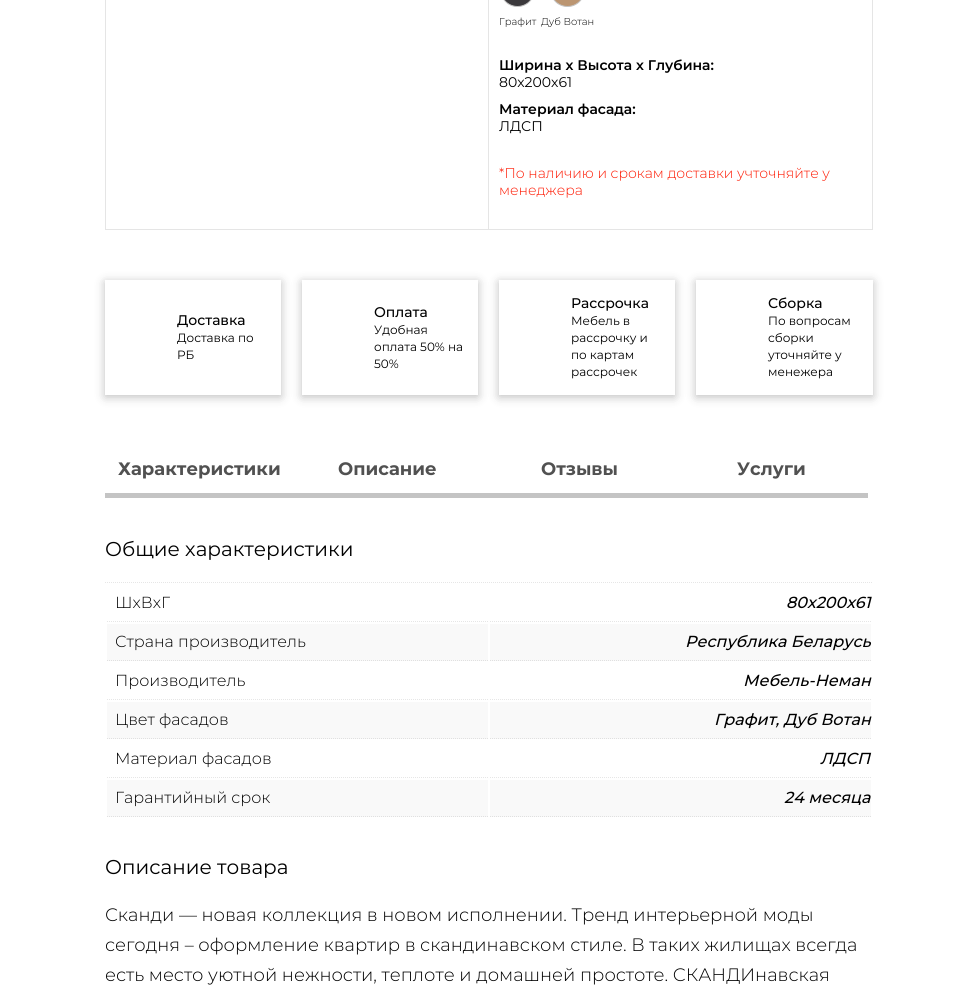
import math
import cairo

surface = cairo.ImageSurface(cairo.Format.RGB24, 977, 992)
ctx = cairo.Context(surface)
options = cairo.FontOptions()
options.set_hint_metrics(cairo.HintMetrics.OFF)
options.set_hint_style(cairo.HintStyle.NONE)
ctx.set_font_options(options)
ctx.set_miter_limit(4)


def ink(r, g, b):
    ctx.set_source_rgb(r / 255, g / 255, b / 255)


def write(x, y, s, family, size, color, bold=False, italic=False):
    ctx.select_font_face(family, cairo.FontSlant.ITALIC if italic else cairo.FontSlant.NORMAL, cairo.FontWeight.BOLD if bold else cairo.FontWeight.NORMAL)
    ctx.set_font_size(size)
    ink(*color)
    ctx.move_to(x, y)
    ctx.show_text(s)


def block(x, y, w, h, *color):
    ink(*color)
    ctx.rectangle(x, y, w, h)
    ctx.fill()


def round_path(x, y, w, h, r):
    ctx.new_sub_path()
    for i, (u, v) in enumerate([(x + w - r, y + h - r), (x + r, y + h - r), (x + r, y + r), (x + w - r, y + r)]):
        ctx.arc(u, v, r, i * math.pi / 2, (i + 1) * math.pi / 2)
    ctx.close_path()


def blur_box(x, y, w, h, r, blur, alpha):
    ctx.push_group_with_content(cairo.Content.ALPHA)
    ctx.set_operator(cairo.Operator.SOURCE)
    for i in range(15, -16, -2):
        e = blur * i / 6
        if min(w, h) + 2 * e > 0:
            ctx.set_source_rgba(0, 0, 0, alpha * math.erfc((i - 1) / 8.5) / 2)
            round_path(x - e, y - e, w + 2 * e, h + 2 * e, max(0, min(r + e + blur * .6, min(w, h) / 2 + e)))
            ctx.fill()
    ctx.mask(ctx.pop_group())


s1 = dict(family="Montserrat Light", size=10, color=(0, 0, 0))
s2 = dict(family="Montserrat SemiBold", size=14, color=(0, 0, 0))
s3 = dict(family="Montserrat", size=14, color=(0, 0, 0))
s4 = dict(family="Montserrat Light", size=14, color=(254, 23, 0))
s5 = dict(family="Montserrat Medium", size=14, color=(0, 0, 0))
s6 = dict(family="Montserrat", size=12, color=(0, 0, 0))
s7 = dict(family="Montserrat", size=18, color=(81, 81, 81), bold=True)
s8 = dict(family="Montserrat", size=20, color=(0, 0, 0))
s9 = dict(family="Montserrat Light", size=16, color=(0, 0, 0))
s10 = dict(family="Montserrat Medium", size=16, color=(0, 0, 0), italic=True)
s11 = dict(family="Montserrat Light", size=18, color=(0, 0, 0))

ink(255, 255, 255)
ctx.paint()
ctx.rectangle(105.5, -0.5, 383, 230)
ink(229, 229, 229)
ctx.set_line_width(1)
ctx.stroke()
block(872, 0, 1, 230, 229, 229, 229)
block(489, 229, 384, 1, 229, 229, 229)
ink(59, 57, 60)
round_path(500.5, -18.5, 34, 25, 17)
ctx.fill_preserve()
ink(196, 196, 196)
ctx.stroke()
write(499, 25, "Графит", **s1)
ink(187, 149, 113)
round_path(550.5, -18.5, 34, 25, 17)
ctx.fill_preserve()
ink(196, 196, 196)
ctx.stroke()
write(541, 25, "Дуб Вотан", **s1)
write(499, 70, "Ширина х Высота х Глубина:", **s2)
write(499, 87, "80х200х61", **s3)
write(499, 114, "Материал фасада:", **s2)
write(499, 131, "ЛДСП", **s3)
write(499, 178, "*По наличию и срокам доставки учточняйте у", **s4)
write(499, 195, "менеджера", **s4)
ctx.save()
ctx.set_fill_rule(cairo.FillRule.EVEN_ODD)
ctx.new_path()
ctx.move_to(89, 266)
ctx.line_to(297, 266)
ctx.line_to(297, 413)
ctx.line_to(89, 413)
ctx.close_path()
ctx.move_to(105, 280)
ctx.line_to(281, 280)
ctx.line_to(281, 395)
ctx.line_to(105, 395)
ctx.close_path()
ctx.clip()
ink(0, 0, 0)
blur_box(105, 282, 176, 115, 0, 5, 0.25)
ctx.restore()
write(177, 325, "Доставка", **s5)
write(177, 342, "Доставка по", **s6)
write(177, 359, "РБ", **s6)
ctx.save()
ctx.set_fill_rule(cairo.FillRule.EVEN_ODD)
ctx.new_path()
ctx.move_to(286, 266)
ctx.line_to(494, 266)
ctx.line_to(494, 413)
ctx.line_to(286, 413)
ctx.close_path()
ctx.move_to(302, 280)
ctx.line_to(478, 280)
ctx.line_to(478, 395)
ctx.line_to(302, 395)
ctx.close_path()
ctx.clip()
ink(0, 0, 0)
blur_box(302, 282, 176, 115, 0, 5, 0.25)
ctx.restore()
write(374, 317, "Оплата", **s5)
write(374, 334, "Удобная", **s6)
write(374, 351, "оплата 50% на", **s6)
write(374, 368, "50%", **s6)
ctx.save()
ctx.set_fill_rule(cairo.FillRule.EVEN_ODD)
ctx.new_path()
ctx.move_to(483, 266)
ctx.line_to(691, 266)
ctx.line_to(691, 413)
ctx.line_to(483, 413)
ctx.close_path()
ctx.move_to(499, 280)
ctx.line_to(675, 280)
ctx.line_to(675, 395)
ctx.line_to(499, 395)
ctx.close_path()
ctx.clip()
ink(0, 0, 0)
blur_box(499, 282, 176, 115, 0, 5, 0.25)
ctx.restore()
write(571, 308, "Рассрочка", **s5)
write(571, 325, "Мебель в", **s6)
write(571, 342, "рассрочку и", **s6)
write(571, 359, "по картам", **s6)
write(571, 376, "рассрочек", **s6)
ctx.save()
ctx.set_fill_rule(cairo.FillRule.EVEN_ODD)
ctx.new_path()
ctx.move_to(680, 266)
ctx.line_to(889, 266)
ctx.line_to(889, 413)
ctx.line_to(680, 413)
ctx.close_path()
ctx.move_to(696, 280)
ctx.line_to(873, 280)
ctx.line_to(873, 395)
ctx.line_to(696, 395)
ctx.close_path()
ctx.clip()
ink(0, 0, 0)
blur_box(696, 282, 177, 115, 0, 5, 0.25)
ctx.restore()
write(768, 308, "Сборка", **s5)
write(768, 325, "По вопросам", **s6)
write(768, 342, "сборки", **s6)
write(768, 359, "уточняйте у", **s6)
write(768, 376, "менежера", **s6)
block(105, 493, 763, 5, 196, 196, 196)
write(118, 475, "Характеристики", **s7)
write(338, 475, "Описание", **s7)
write(541, 475, "Отзывы", **s7)
write(737, 475, "Услуги", **s7)
write(105, 556, "Общие характеристики", **s8)
ctx.new_path()
ctx.move_to(105, 582.5)
ctx.line_to(873, 582.5)
ink(230, 230, 230)
ctx.set_dash([1, 1])
ctx.stroke()
ctx.new_path()
ctx.move_to(107, 621.5)
ctx.line_to(488, 621.5)
ctx.stroke()
write(115, 608, "ШхВхГ", **s9)
ctx.new_path()
ctx.move_to(490, 621.5)
ctx.line_to(871, 621.5)
ink(230, 230, 230)
ctx.stroke()
write(786, 608, "80х200х61", **s10)
block(107, 624, 381, 37, 249, 249, 249)
ctx.new_path()
ctx.move_to(107, 660.5)
ctx.line_to(488, 660.5)
ink(224, 224, 224)
ctx.stroke()
write(115, 647, "Страна производитель", **s9)
block(490, 624, 381, 37, 249, 249, 249)
ctx.new_path()
ctx.move_to(490, 660.5)
ctx.line_to(871, 660.5)
ink(224, 224, 224)
ctx.stroke()
write(685, 647, "Республика Беларусь", **s10)
ctx.new_path()
ctx.move_to(107, 699.5)
ctx.line_to(488, 699.5)
ink(230, 230, 230)
ctx.stroke()
write(115, 686, "Производитель", **s9)
ctx.new_path()
ctx.move_to(490, 699.5)
ctx.line_to(871, 699.5)
ink(230, 230, 230)
ctx.stroke()
write(743, 686, "Мебель-Неман", **s10)
block(107, 702, 381, 37, 249, 249, 249)
ctx.new_path()
ctx.move_to(107, 738.5)
ctx.line_to(488, 738.5)
ink(224, 224, 224)
ctx.stroke()
write(115, 725, "Цвет фасадов", **s9)
block(490, 702, 381, 37, 249, 249, 249)
ctx.new_path()
ctx.move_to(490, 738.5)
ctx.line_to(871, 738.5)
ink(224, 224, 224)
ctx.stroke()
write(714, 725, "Графит, Дуб Вотан", **s10)
ctx.new_path()
ctx.move_to(107, 777.5)
ctx.line_to(488, 777.5)
ink(230, 230, 230)
ctx.stroke()
write(115, 764, "Материал фасадов", **s9)
ctx.new_path()
ctx.move_to(490, 777.5)
ctx.line_to(871, 777.5)
ink(230, 230, 230)
ctx.stroke()
write(820, 764, "ЛДСП", **s10)
block(107, 780, 381, 37, 249, 249, 249)
ctx.new_path()
ctx.move_to(107, 816.5)
ctx.line_to(488, 816.5)
ink(224, 224, 224)
ctx.stroke()
write(115, 803, "Гарантийный срок", **s9)
block(490, 780, 381, 37, 249, 249, 249)
ctx.new_path()
ctx.move_to(490, 816.5)
ctx.line_to(871, 816.5)
ink(224, 224, 224)
ctx.stroke()
write(784, 803, "24 месяца", **s10)
write(105, 874, "Описание товара", **s8)
write(105, 921, "Сканди — новая коллекция в новом исполнении. Тренд интерьерной моды", **s11)
write(105, 951, "сегодня – оформление квартир в скандинавском стиле. В таких жилищах всегда", **s11)
write(105, 981, "есть место уютной нежности, теплоте и домашней простоте. СКАНДИнавская", **s11)
surface.write_to_png("screenshot.png")
